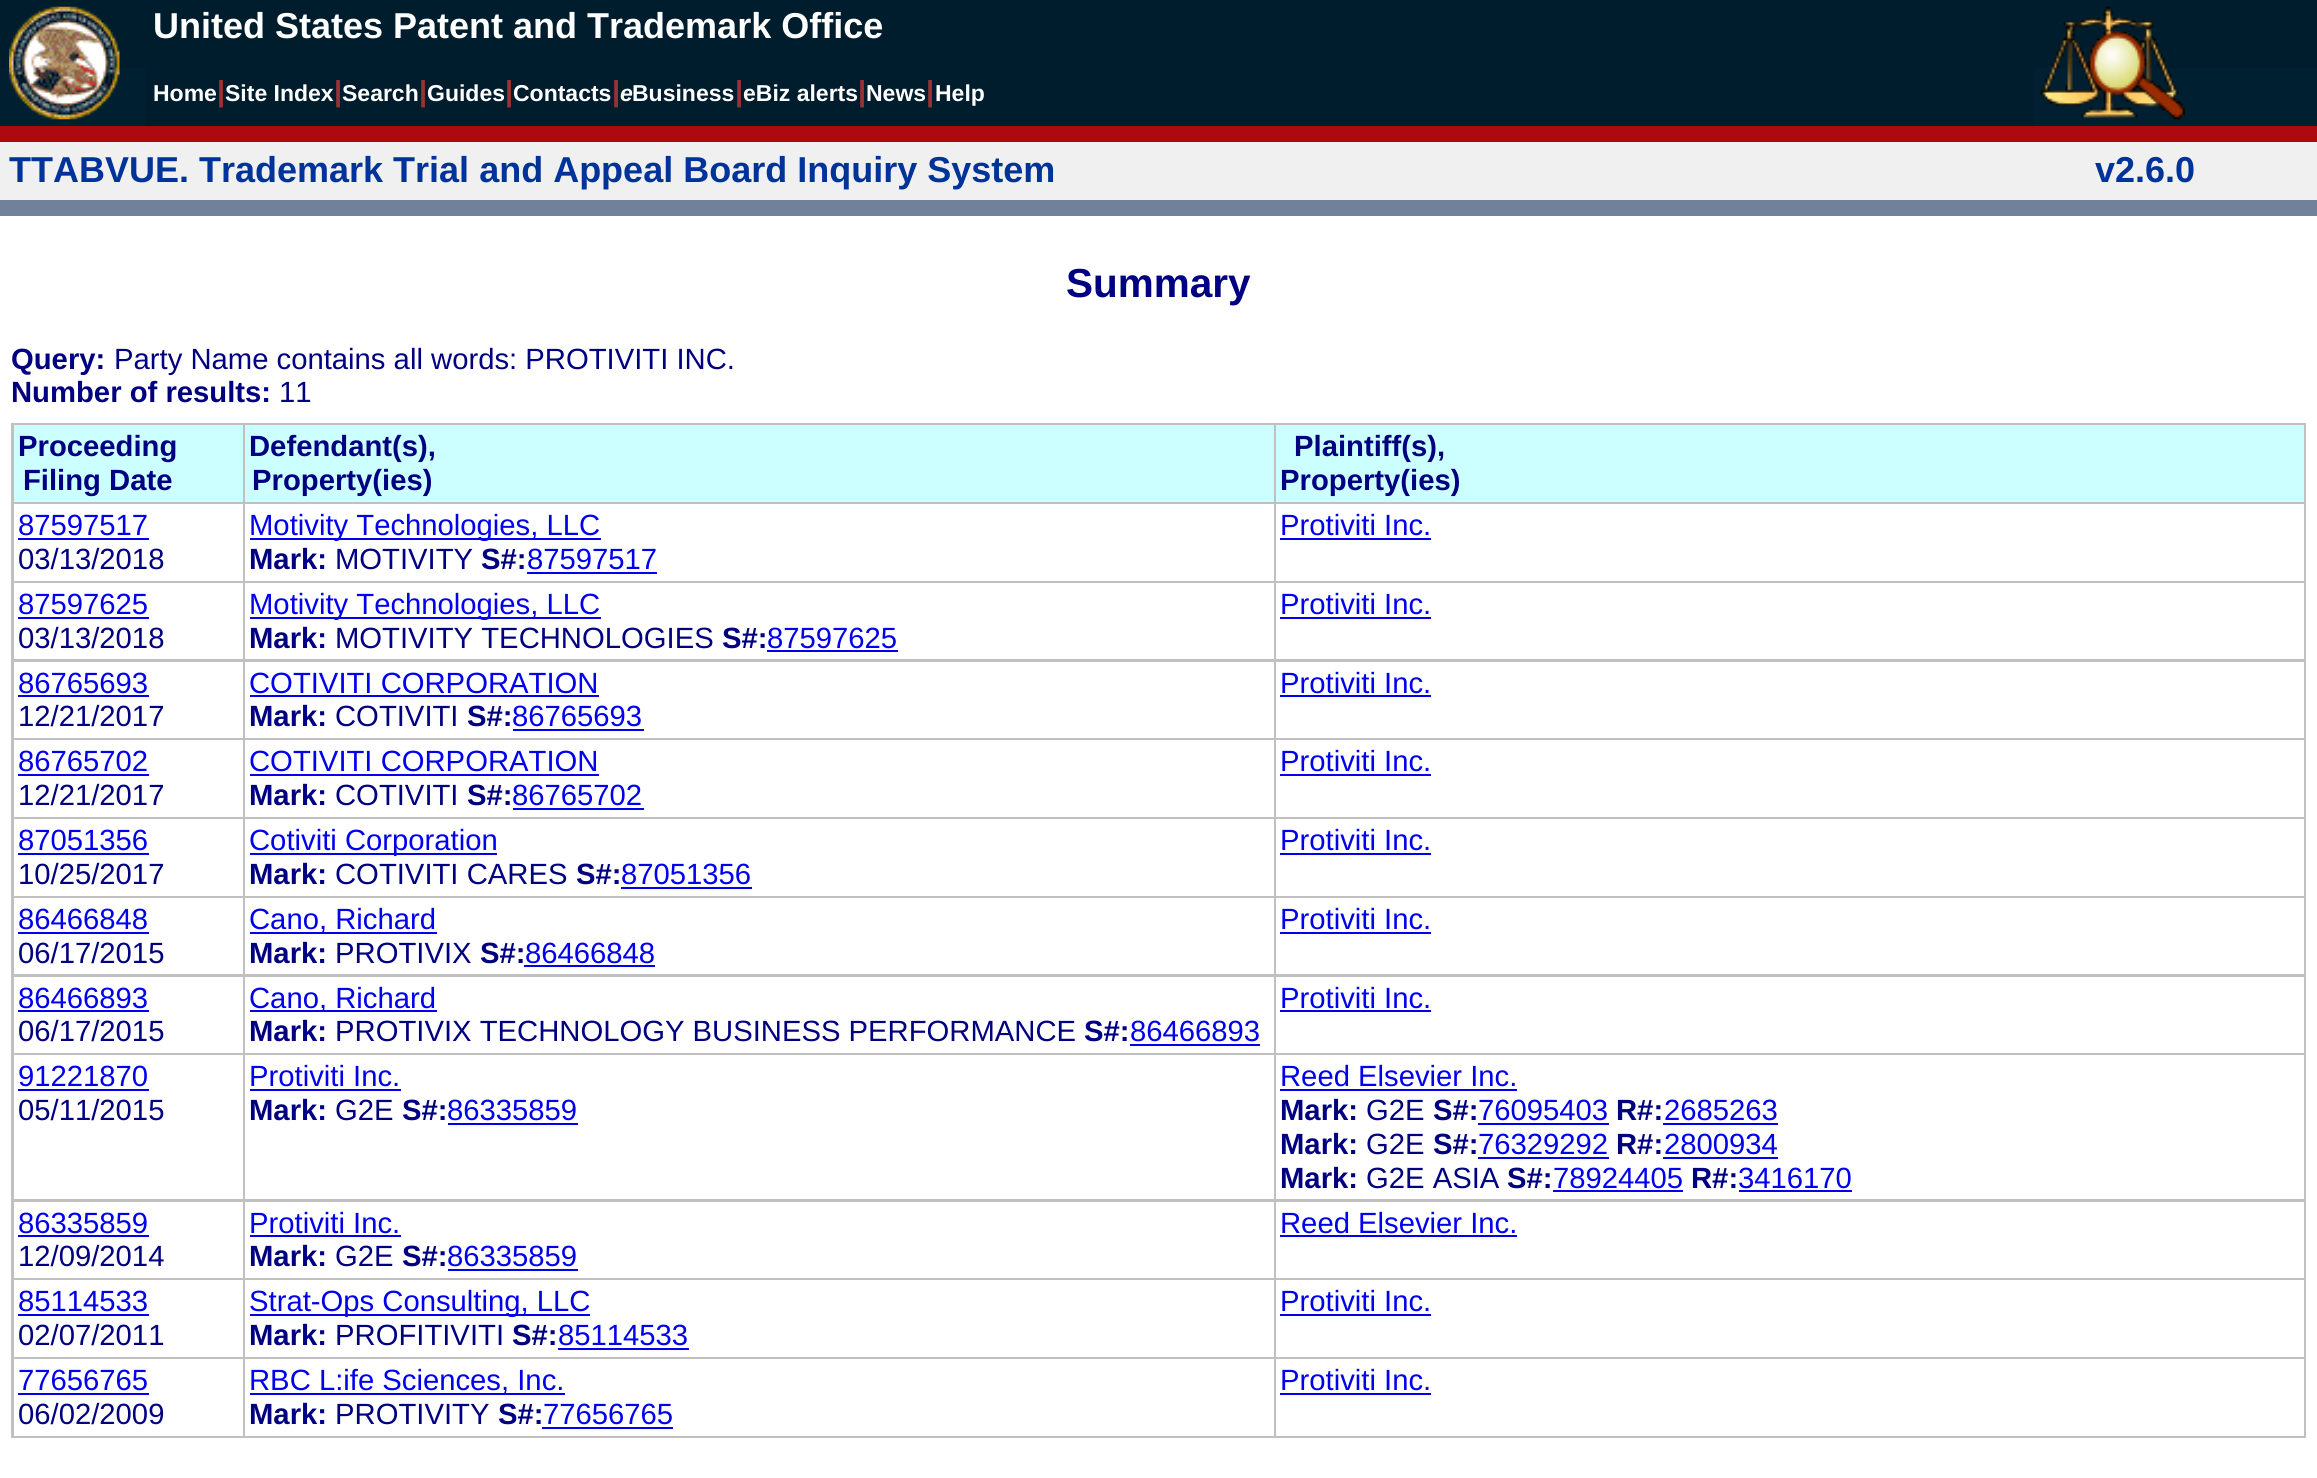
import math
import cairo

surface = cairo.ImageSurface(cairo.Format.RGB24, 2317, 1478)
ctx = cairo.Context(surface)
options = cairo.FontOptions()
options.set_hint_metrics(cairo.HintMetrics.OFF)
options.set_hint_style(cairo.HintStyle.NONE)
ctx.set_font_options(options)
ctx.set_miter_limit(4)


def ink(r, g, b):
    ctx.set_source_rgb(r / 255, g / 255, b / 255)


def write(x, y, s, family, size, color, bold=False, italic=False):
    ctx.select_font_face(family, cairo.FontSlant.ITALIC if italic else cairo.FontSlant.NORMAL, cairo.FontWeight.BOLD if bold else cairo.FontWeight.NORMAL)
    ctx.set_font_size(size)
    ink(*color)
    ctx.move_to(x, y)
    ctx.show_text(s)


def block(x, y, w, h, *color):
    ink(*color)
    ctx.rectangle(x, y, w, h)
    ctx.fill()


def paste(path, x, y, w, h):
    ctx.save()
    ctx.set_source_surface(cairo.ImageSurface.create_from_png(path), x, y)
    ctx.rectangle(x, y, w, h)
    ctx.fill()
    ctx.restore()


s1 = dict(family="Liberation Sans", size=36, color=(255, 255, 255), bold=True)
s2 = dict(family="Liberation Sans", size=23, color=(255, 255, 255), bold=True)
s3 = dict(family="Liberation Sans", size=29, color=(153, 51, 51), bold=True)
s4 = dict(family="Liberation Sans", size=23, color=(255, 255, 255), bold=True, italic=True)
s5 = dict(family="Liberation Sans", size=36, color=(0, 51, 153), bold=True)
s6 = dict(family="Liberation Sans", size=40.5, color=(0, 0, 128), bold=True)
s7 = dict(family="Liberation Sans", size=29.25, color=(0, 0, 128), bold=True)
s8 = dict(family="Liberation Sans", size=29.25, color=(0, 0, 128))
s9 = dict(family="Liberation Sans", size=29.25, color=(0, 0, 238))

ink(255, 255, 255)
ctx.paint()
block(0, 0, 2317, 68, 0, 29, 45)
block(0, 68, 2317, 58, 0, 32, 50)
paste("pic1.png", 9, 6, 111, 114)
write(153, 38, "United States Patent and Trademark Office", **s1)
paste("pic2.png", 2040, 6, 145, 114)
block(146, 68, 1888, 58, 0, 29, 45)
write(153, 101, "Home", **s2)
write(217, 101, "|", **s3)
write(225, 101, "Site Index", **s2)
write(334, 101, "|", **s3)
write(342, 101, "Search", **s2)
write(419, 101, "|", **s3)
write(427, 101, "Guides", **s2)
write(505, 101, "|", **s3)
write(513, 101, "Contacts", **s2)
write(612, 101, "|", **s3)
write(620, 101, "e", **s4)
write(632, 101, "Business", **s2)
write(735, 101, "|", **s3)
write(743, 101, "eBiz alerts", **s2)
write(858, 101, "|", **s3)
write(866, 101, "News", **s2)
write(926, 101, "|", **s3)
write(935, 101, "Help", **s2)
block(0, 126, 2317, 16, 172, 9, 17)
block(0, 142, 2317, 58, 240, 240, 240)
write(9, 182, "TTABVUE. Trademark Trial and Appeal Board Inquiry System", **s5)
write(2095, 182, "v2.6.0", **s5)
block(0, 200, 2317, 16, 113, 129, 155)
write(1066, 297, "Summary", **s6)
write(11, 369, "Query:", **s7)
write(114, 369, "Party Name contains all words: PROTIVITI INC.", **s8)
write(11, 402, "Number of results:", **s7)
write(279, 402, "11", **s8)
block(11, 423, 2295, 1015, 192, 192, 192)
block(14, 425, 229, 77, 204, 255, 255)
write(18, 456, "Proceeding", **s7)
write(23, 490, "Filing Date", **s7)
block(245, 425, 1029, 77, 204, 255, 255)
write(249, 456, "Defendant(s),", **s7)
write(252, 490, "Property(ies)", **s7)
block(1276, 425, 1028, 77, 204, 255, 255)
write(1294, 456, "Plaintiff(s),", **s7)
write(1280, 490, "Property(ies)", **s7)
block(14, 504, 229, 77, 255, 255, 255)
write(18, 535, "87597517", **s9)
block(18, 538, 131, 2, 0, 0, 238)
write(18, 569, "03/13/2018", **s8)
block(245, 504, 1029, 77, 255, 255, 255)
block(250, 538, 351, 2, 0, 0, 238)
write(249, 535, "Motivity Technologies, LLC", **s9)
write(249, 569, "Mark:", **s7)
write(335, 569, "MOTIVITY", **s8)
write(481, 569, "S#:", **s7)
write(527, 569, "87597517", **s9)
block(527, 572, 130, 2, 0, 0, 238)
block(1276, 504, 1028, 77, 255, 255, 255)
write(1280, 535, "Protiviti Inc.", **s9)
block(1280, 538, 151, 2, 0, 0, 238)
block(14, 583, 229, 76, 255, 255, 255)
write(18, 614, "87597625", **s9)
block(18, 617, 131, 2, 0, 0, 238)
write(18, 648, "03/13/2018", **s8)
block(245, 583, 1029, 76, 255, 255, 255)
block(250, 617, 351, 2, 0, 0, 238)
write(249, 614, "Motivity Technologies, LLC", **s9)
write(249, 648, "Mark:", **s7)
write(335, 648, "MOTIVITY TECHNOLOGIES", **s8)
write(722, 648, "S#:", **s7)
write(767, 648, "87597625", **s9)
block(767, 650, 131, 2, 0, 0, 238)
block(1276, 583, 1028, 76, 255, 255, 255)
write(1280, 614, "Protiviti Inc.", **s9)
block(1280, 617, 151, 2, 0, 0, 238)
block(14, 662, 229, 76, 255, 255, 255)
write(18, 693, "86765693", **s9)
block(18, 695, 131, 2, 0, 0, 238)
write(18, 726, "12/21/2017", **s8)
block(245, 662, 1029, 76, 255, 255, 255)
write(249, 693, "COTIVITI CORPORATION", **s9)
block(250, 695, 349, 2, 0, 0, 238)
write(249, 726, "Mark:", **s7)
write(335, 726, "COTIVITI", **s8)
write(467, 726, "S#:", **s7)
write(512, 726, "86765693", **s9)
block(513, 729, 131, 2, 0, 0, 238)
block(1276, 662, 1028, 76, 255, 255, 255)
write(1280, 693, "Protiviti Inc.", **s9)
block(1280, 695, 151, 2, 0, 0, 238)
block(14, 740, 229, 77, 255, 255, 255)
write(18, 771, "86765702", **s9)
block(18, 774, 131, 2, 0, 0, 238)
write(18, 805, "12/21/2017", **s8)
block(245, 740, 1029, 77, 255, 255, 255)
write(249, 771, "COTIVITI CORPORATION", **s9)
block(250, 774, 349, 2, 0, 0, 238)
write(249, 805, "Mark:", **s7)
write(335, 805, "COTIVITI", **s8)
write(467, 805, "S#:", **s7)
write(512, 805, "86765702", **s9)
block(513, 808, 131, 2, 0, 0, 238)
block(1276, 740, 1028, 77, 255, 255, 255)
write(1280, 771, "Protiviti Inc.", **s9)
block(1280, 774, 151, 2, 0, 0, 238)
block(14, 819, 229, 77, 255, 255, 255)
write(18, 850, "87051356", **s9)
block(18, 853, 131, 2, 0, 0, 238)
write(18, 884, "10/25/2017", **s8)
block(245, 819, 1029, 77, 255, 255, 255)
block(250, 853, 247, 2, 0, 0, 238)
write(249, 850, "Cotiviti Corporation", **s9)
write(249, 884, "Mark:", **s7)
write(335, 884, "COTIVITI CARES", **s8)
write(576, 884, "S#:", **s7)
write(621, 884, "87051356", **s9)
block(621, 887, 131, 2, 0, 0, 238)
block(1276, 819, 1028, 77, 255, 255, 255)
write(1280, 850, "Protiviti Inc.", **s9)
block(1280, 853, 151, 2, 0, 0, 238)
block(14, 898, 229, 76, 255, 255, 255)
write(18, 929, "86466848", **s9)
block(18, 932, 131, 2, 0, 0, 238)
write(18, 963, "06/17/2015", **s8)
block(245, 898, 1029, 76, 255, 255, 255)
block(250, 932, 187, 2, 0, 0, 238)
write(249, 929, "Cano, Richard", **s9)
write(249, 963, "Mark:", **s7)
write(335, 963, "PROTIVIX", **s8)
write(480, 963, "S#:", **s7)
write(525, 963, "86466848", **s9)
block(524, 965, 131, 2, 0, 0, 238)
block(1276, 898, 1028, 76, 255, 255, 255)
write(1280, 929, "Protiviti Inc.", **s9)
block(1280, 932, 151, 2, 0, 0, 238)
block(14, 977, 229, 76, 255, 255, 255)
write(18, 1008, "86466893", **s9)
block(18, 1010, 131, 2, 0, 0, 238)
write(18, 1041, "06/17/2015", **s8)
block(245, 977, 1029, 76, 255, 255, 255)
block(250, 1010, 187, 2, 0, 0, 238)
write(249, 1008, "Cano, Richard", **s9)
write(249, 1041, "Mark:", **s7)
write(335, 1041, "PROTIVIX TECHNOLOGY BUSINESS PERFORMANCE", **s8)
write(1084, 1041, "S#:", **s7)
write(1130, 1041, "86466893", **s9)
block(1130, 1044, 130, 2, 0, 0, 238)
block(1276, 977, 1028, 76, 255, 255, 255)
write(1280, 1008, "Protiviti Inc.", **s9)
block(1280, 1010, 151, 2, 0, 0, 238)
block(14, 1055, 229, 144, 255, 255, 255)
write(18, 1086, "91221870", **s9)
block(18, 1089, 131, 2, 0, 0, 238)
write(18, 1120, "05/11/2015", **s8)
block(245, 1055, 1029, 144, 255, 255, 255)
write(249, 1086, "Protiviti Inc.", **s9)
block(250, 1089, 151, 2, 0, 0, 238)
write(249, 1120, "Mark:", **s7)
write(335, 1120, "G2E", **s8)
write(402, 1120, "S#:", **s7)
write(447, 1120, "86335859", **s9)
block(448, 1123, 130, 2, 0, 0, 238)
block(1276, 1055, 1028, 144, 255, 255, 255)
write(1280, 1086, "Reed Elsevier Inc.", **s9)
block(1280, 1089, 237, 2, 0, 0, 238)
write(1280, 1120, "Mark:", **s7)
write(1366, 1120, "G2E", **s8)
write(1433, 1120, "S#:", **s7)
write(1478, 1120, "76095403", **s9)
block(1478, 1123, 131, 2, 0, 0, 238)
write(1616, 1120, "R#:", **s7)
write(1664, 1120, "2685263", **s9)
block(1663, 1123, 115, 2, 0, 0, 238)
write(1280, 1154, "Mark:", **s7)
write(1366, 1154, "G2E", **s8)
write(1433, 1154, "S#:", **s7)
write(1478, 1154, "76329292", **s9)
block(1478, 1157, 131, 2, 0, 0, 238)
write(1616, 1154, "R#:", **s7)
write(1664, 1154, "2800934", **s9)
block(1663, 1157, 115, 2, 0, 0, 238)
write(1280, 1188, "Mark:", **s7)
write(1366, 1188, "G2E ASIA", **s8)
write(1507, 1188, "S#:", **s7)
write(1553, 1188, "78924405", **s9)
block(1553, 1190, 130, 2, 0, 0, 238)
write(1691, 1188, "R#:", **s7)
write(1738, 1188, "3416170", **s9)
block(1739, 1190, 113, 2, 0, 0, 238)
block(14, 1202, 229, 76, 255, 255, 255)
write(18, 1233, "86335859", **s9)
block(18, 1235, 131, 2, 0, 0, 238)
write(18, 1266, "12/09/2014", **s8)
block(245, 1202, 1029, 76, 255, 255, 255)
write(249, 1233, "Protiviti Inc.", **s9)
block(250, 1235, 151, 2, 0, 0, 238)
write(249, 1266, "Mark:", **s7)
write(335, 1266, "G2E", **s8)
write(402, 1266, "S#:", **s7)
write(447, 1266, "86335859", **s9)
block(448, 1269, 130, 2, 0, 0, 238)
block(1276, 1202, 1028, 76, 255, 255, 255)
write(1280, 1233, "Reed Elsevier Inc.", **s9)
block(1280, 1235, 237, 2, 0, 0, 238)
block(14, 1280, 229, 77, 255, 255, 255)
write(18, 1311, "85114533", **s9)
block(18, 1314, 131, 2, 0, 0, 238)
write(18, 1345, "02/07/2011", **s8)
block(245, 1280, 1029, 77, 255, 255, 255)
block(250, 1314, 340, 2, 0, 0, 238)
write(249, 1311, "Strat-Ops Consulting, LLC", **s9)
write(249, 1345, "Mark:", **s7)
write(335, 1345, "PROFITIVITI", **s8)
write(512, 1345, "S#:", **s7)
write(558, 1345, "85114533", **s9)
block(558, 1348, 131, 2, 0, 0, 238)
block(1276, 1280, 1028, 77, 255, 255, 255)
write(1280, 1311, "Protiviti Inc.", **s9)
block(1280, 1314, 151, 2, 0, 0, 238)
block(14, 1359, 229, 77, 255, 255, 255)
write(18, 1390, "77656765", **s9)
block(18, 1393, 131, 2, 0, 0, 238)
write(18, 1424, "06/02/2009", **s8)
block(245, 1359, 1029, 77, 255, 255, 255)
block(250, 1393, 315, 2, 0, 0, 238)
write(249, 1390, "RBC L:ife Sciences, Inc.", **s9)
write(249, 1424, "Mark:", **s7)
write(335, 1424, "PROTIVITY", **s8)
write(498, 1424, "S#:", **s7)
write(543, 1424, "77656765", **s9)
block(542, 1427, 131, 2, 0, 0, 238)
block(1276, 1359, 1028, 77, 255, 255, 255)
write(1280, 1390, "Protiviti Inc.", **s9)
block(1280, 1393, 151, 2, 0, 0, 238)
surface.write_to_png("screenshot.png")
